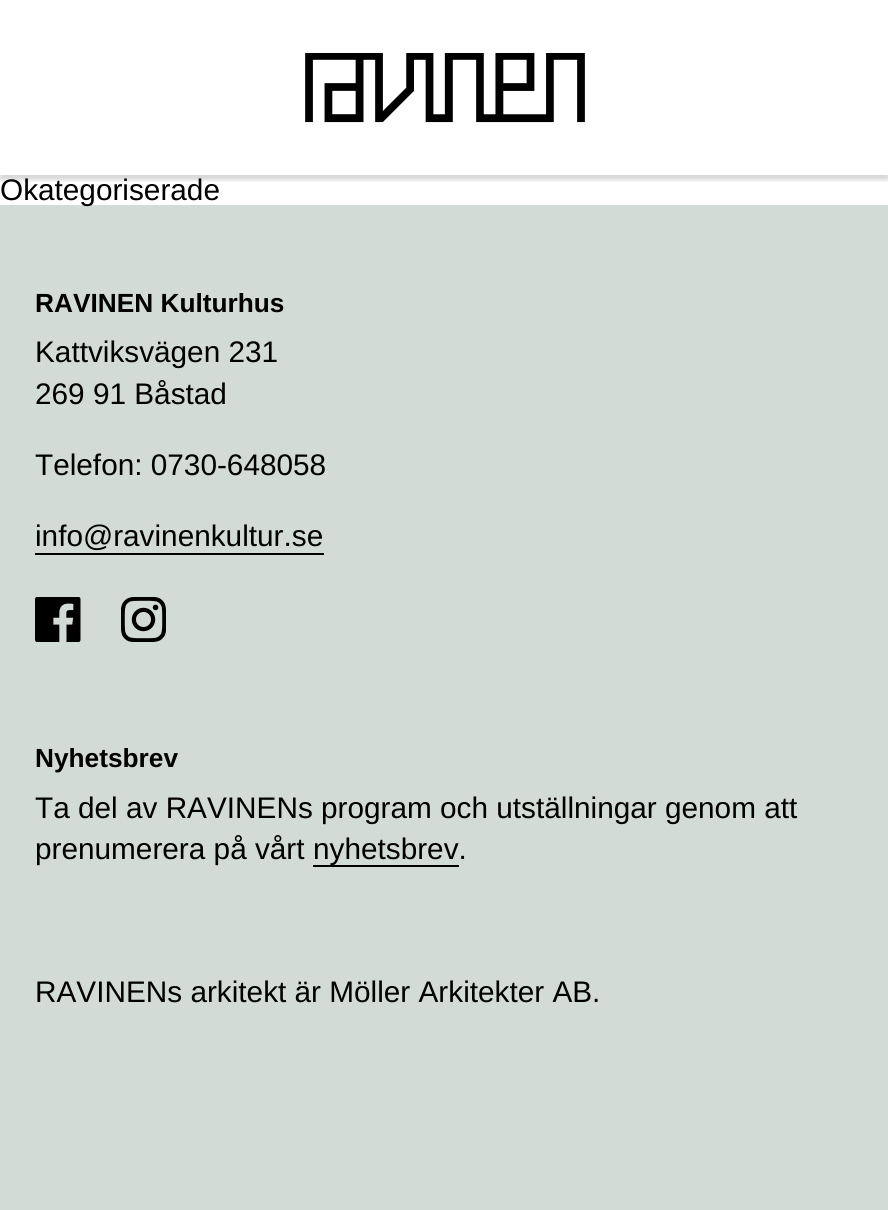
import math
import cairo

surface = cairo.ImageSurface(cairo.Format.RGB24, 888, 1210)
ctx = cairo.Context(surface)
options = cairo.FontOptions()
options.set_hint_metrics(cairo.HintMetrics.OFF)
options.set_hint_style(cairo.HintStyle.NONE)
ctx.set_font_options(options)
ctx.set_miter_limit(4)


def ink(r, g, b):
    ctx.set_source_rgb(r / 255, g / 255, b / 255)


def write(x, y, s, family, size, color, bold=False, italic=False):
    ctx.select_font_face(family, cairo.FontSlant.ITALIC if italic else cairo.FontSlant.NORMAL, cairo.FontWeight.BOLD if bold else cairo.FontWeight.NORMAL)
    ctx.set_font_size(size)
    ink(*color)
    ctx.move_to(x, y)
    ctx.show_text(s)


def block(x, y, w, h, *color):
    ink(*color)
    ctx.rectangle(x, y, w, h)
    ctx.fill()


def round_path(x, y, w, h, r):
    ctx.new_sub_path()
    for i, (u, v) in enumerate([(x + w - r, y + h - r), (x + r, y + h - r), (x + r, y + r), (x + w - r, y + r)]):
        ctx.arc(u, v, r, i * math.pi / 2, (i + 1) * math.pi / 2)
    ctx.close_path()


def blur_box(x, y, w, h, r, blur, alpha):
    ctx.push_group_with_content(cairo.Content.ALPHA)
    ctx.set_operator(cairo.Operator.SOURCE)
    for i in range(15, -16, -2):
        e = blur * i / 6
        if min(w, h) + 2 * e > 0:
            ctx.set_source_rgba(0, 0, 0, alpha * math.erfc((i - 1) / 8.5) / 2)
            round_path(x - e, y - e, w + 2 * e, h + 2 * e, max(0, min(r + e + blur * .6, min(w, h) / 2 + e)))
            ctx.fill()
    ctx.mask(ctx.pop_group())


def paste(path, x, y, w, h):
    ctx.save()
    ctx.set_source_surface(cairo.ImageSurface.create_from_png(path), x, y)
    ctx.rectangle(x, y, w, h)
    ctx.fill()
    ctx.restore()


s1 = dict(family="Liberation Sans", size=29.75, color=(0, 0, 0))
s2 = dict(family="Liberation Sans", size=26.25, color=(0, 0, 0), bold=True)

ink(255, 255, 255)
ctx.paint()
ctx.save()
ctx.rectangle(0, 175, 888, 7)
ctx.clip()
ink(0, 0, 0)
blur_box(0, 5, 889, 175, 0, 2, 0.16)
ctx.restore()
paste("pic1.png", 305, 53, 280, 70)
block(0, 205, 888, 1005, 211, 219, 214)
write(0, 200, "Okategoriserade", **s1)
write(35, 312, "RAVINEN Kulturhus", **s2)
write(35, 362, "Kattviksvägen 231", **s1)
write(35, 404, "269 91 Båstad", **s1)
write(35, 475, "Telefon: 0730-648058", **s1)
write(35, 546, "info@ravinenkultur.se", **s1)
block(35, 553, 289, 2, 0, 0, 0)
paste("pic2.png", 35, 597, 46, 45)
paste("pic3.png", 121, 597, 45, 45)
write(35, 767, "Nyhetsbrev", **s2)
write(35, 818, "Ta del av RAVINENs program och utställningar genom att", **s1)
write(35, 859, "prenumerera på vårt", **s1)
block(313, 865, 146, 2, 0, 0, 0)
write(313, 859, "nyhetsbrev.", **s1)
write(35, 1002, "RAVINENs arkitekt är Möller Arkitekter AB.", **s1)
surface.write_to_png("screenshot.png")
